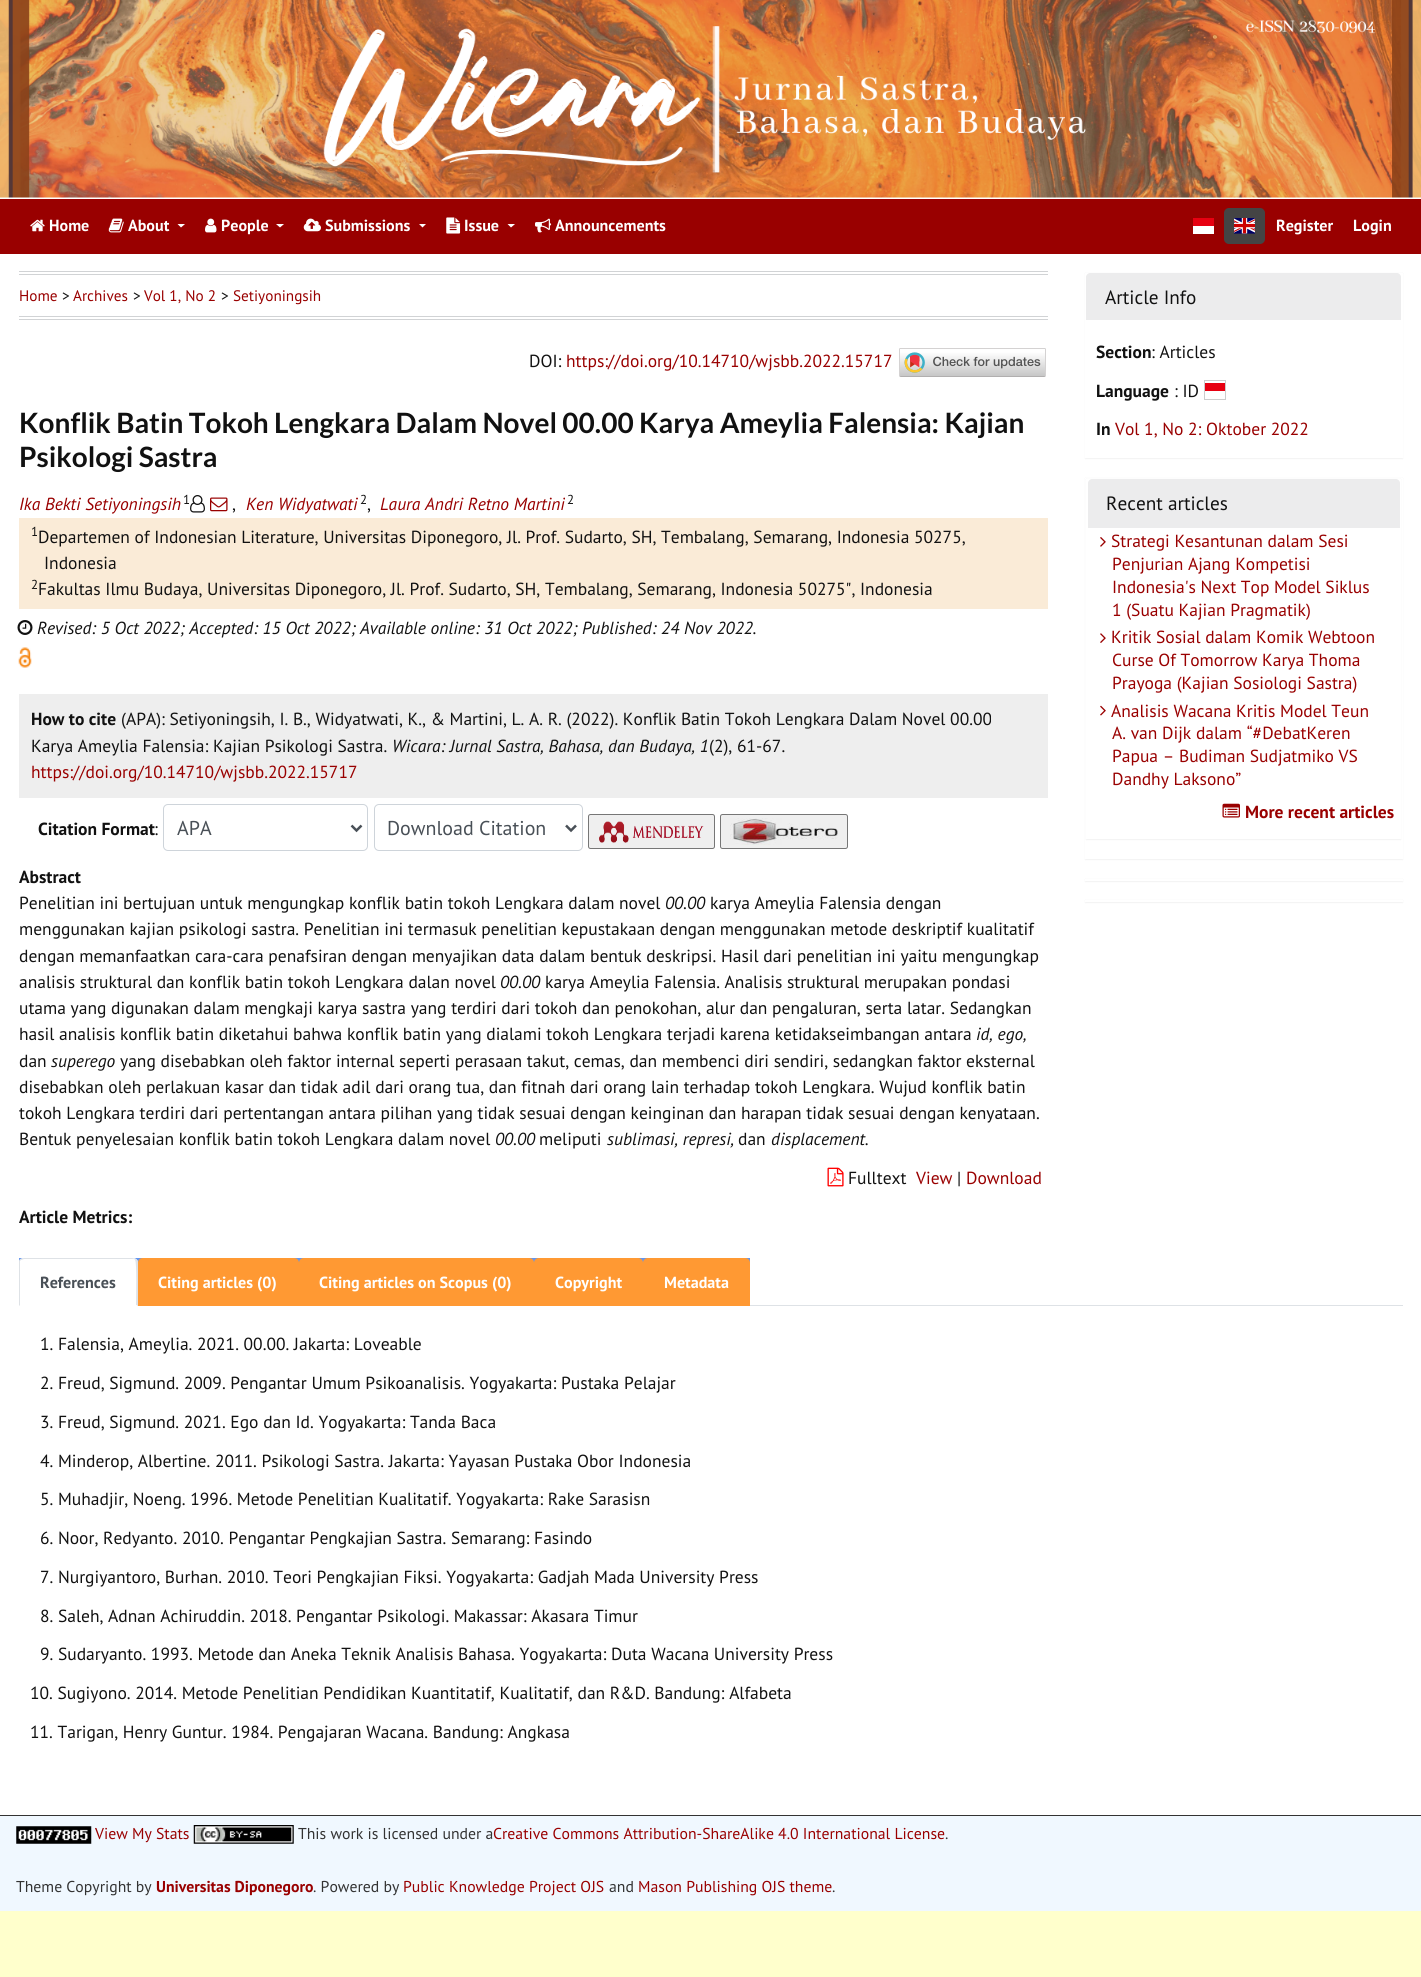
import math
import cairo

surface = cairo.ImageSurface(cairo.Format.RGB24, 1421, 1977)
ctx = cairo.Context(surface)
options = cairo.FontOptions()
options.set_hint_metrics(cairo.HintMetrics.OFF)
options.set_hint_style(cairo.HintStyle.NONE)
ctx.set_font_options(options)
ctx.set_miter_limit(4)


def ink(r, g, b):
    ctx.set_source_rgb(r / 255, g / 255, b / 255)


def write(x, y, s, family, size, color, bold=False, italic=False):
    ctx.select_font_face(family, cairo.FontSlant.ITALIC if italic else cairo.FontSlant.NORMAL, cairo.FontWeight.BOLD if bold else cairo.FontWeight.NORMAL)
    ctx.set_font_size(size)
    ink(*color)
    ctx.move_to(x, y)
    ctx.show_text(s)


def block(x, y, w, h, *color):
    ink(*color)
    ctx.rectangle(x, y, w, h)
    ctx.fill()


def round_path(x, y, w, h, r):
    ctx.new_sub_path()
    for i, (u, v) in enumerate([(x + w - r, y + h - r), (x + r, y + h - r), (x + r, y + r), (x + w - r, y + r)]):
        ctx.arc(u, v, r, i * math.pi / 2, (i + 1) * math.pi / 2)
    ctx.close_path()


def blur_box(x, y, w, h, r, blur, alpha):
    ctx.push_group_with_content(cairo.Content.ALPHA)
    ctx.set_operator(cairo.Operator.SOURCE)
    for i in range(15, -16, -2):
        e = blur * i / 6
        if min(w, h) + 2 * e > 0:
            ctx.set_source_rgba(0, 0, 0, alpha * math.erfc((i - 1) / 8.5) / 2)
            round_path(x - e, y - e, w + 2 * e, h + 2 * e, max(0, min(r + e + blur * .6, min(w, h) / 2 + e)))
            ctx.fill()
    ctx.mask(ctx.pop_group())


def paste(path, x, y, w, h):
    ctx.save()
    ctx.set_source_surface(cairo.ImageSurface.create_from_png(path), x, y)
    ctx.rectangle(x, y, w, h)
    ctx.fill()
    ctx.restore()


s1 = dict(family="PT Sans", size=16.1, color=(255, 255, 255), bold=True)
s2 = dict(family="PT Sans", size=15.25, color=(153, 0, 0))
s3 = dict(family="PT Sans", size=15.25, color=(17, 17, 17))
s4 = dict(family="PT Sans", size=17.5, color=(17, 17, 17))
s5 = dict(family="PT Sans", size=17.5, color=(153, 0, 0))
s6 = dict(family="Lato", size=28, color=(17, 17, 17), bold=True)
s7 = dict(family="PT Sans", size=17.5, color=(153, 0, 0), italic=True)
s8 = dict(family="PT Sans", size=13, color=(17, 17, 17))
s9 = dict(family="PT Sans", size=17.5, color=(17, 17, 17), italic=True)
s10 = dict(family="PT Sans", size=17.5, color=(17, 17, 17), bold=True)
s11 = dict(family="PT Sans", size=20, color=(73, 80, 87))
s12 = dict(family="PT Sans", size=19.25, color=(17, 17, 17))
s13 = dict(family="PT Sans", size=17.5, color=(153, 0, 0), bold=True)
s14 = dict(family="PT Sans", size=16.1, color=(73, 80, 87), bold=True)
s15 = dict(family="PT Sans", size=15.75, color=(153, 0, 0))
s16 = dict(family="PT Sans", size=15.75, color=(51, 51, 51))
s17 = dict(family="PT Sans", size=15.75, color=(153, 0, 0), bold=True)

ink(255, 255, 204)
ctx.paint()
block(0, 197, 1421, 1618, 255, 255, 255)
paste("pic1.png", 0, 0, 1421, 198)
block(0, 199, 1421, 55, 153, 0, 0)
paste("pic2.png", 30, 219, 15, 13)
write(49, 231, "Home", **s1)
paste("pic3.png", 108, 218, 16, 15)
write(128, 231, "About", **s1)
ctx.new_path()
ctx.move_to(177.5, 224)
ctx.line_to(185, 224)
ctx.line_to(181, 227.5)
ctx.close_path()
ctx.fill()
paste("pic4.png", 205, 218, 12, 15)
write(221, 231, "People", **s1)
ctx.new_path()
ctx.move_to(276, 224)
ctx.line_to(284, 224)
ctx.line_to(280, 227.5)
ctx.close_path()
ctx.fill()
paste("pic5.png", 303, 218, 18, 14)
write(325, 231, "Submissions", **s1)
ctx.new_path()
ctx.move_to(419, 224)
ctx.line_to(426, 224)
ctx.line_to(422.5, 227.5)
ctx.close_path()
ctx.fill()
paste("pic6.png", 446, 217, 15, 17)
write(464, 231, "Issue", **s1)
ctx.new_path()
ctx.move_to(507.5, 224)
ctx.line_to(515, 224)
ctx.line_to(511, 227.5)
ctx.close_path()
ctx.fill()
paste("pic7.png", 535, 218, 17, 15)
write(555, 231, "Announcements", **s1)
block(1193, 218, 21, 8, 231, 0, 17)
block(1193, 226, 21, 8, 255, 255, 255)
ink(68, 68, 68)
round_path(1224, 208, 41, 36, 5)
ctx.fill()
paste("pic8.png", 1234, 218, 21, 16)
write(1276, 231, "Register", **s1)
write(1353, 231, "Login", **s1)
block(19, 271, 1029, 1, 209, 211, 213)
block(19, 274, 1029, 1, 209, 211, 213)
block(19, 316, 1029, 1, 209, 211, 213)
block(19, 319, 1029, 1, 209, 211, 213)
write(19, 301, "Home", **s2)
write(62, 301, ">", **s3)
write(73, 301, "Archives", **s2)
write(133, 301, ">", **s3)
write(144, 301, "Vol 1, No 2", **s2)
write(221, 301, ">", **s3)
write(233, 301, "Setiyoningsih", **s2)
write(529, 367, "DOI:", **s4)
write(566, 367, "https://doi.org/10.14710/wjsbb.2022.15717", **s5)
paste("pic9.png", 899, 348, 147, 29)
write(19, 433, "Konflik Batin Tokoh Lengkara Dalam Novel 00.00 Karya Ameylia Falensia: Kajian", **s6)
write(19, 467, "Psikologi Sastra", **s6)
write(19, 510, "Ika Bekti Setiyoningsih", **s7)
write(183, 504, "1", **s8)
paste("pic10.png", 190, 495, 15, 18)
paste("pic11.png", 210, 497, 18, 15)
write(232, 510, ",", **s4)
write(246, 510, "Ken Widyatwati", **s7)
write(360, 504, "2", **s8)
write(367, 510, ",", **s4)
write(380, 510, "Laura Andri Retno Martini", **s7)
write(567, 504, "2", **s8)
block(19, 518, 1029, 91, 250, 235, 215)
write(31, 536, "1", **s8)
write(38, 543, "Departemen of Indonesian Literature, Universitas Diponegoro, Jl. Prof. Sudarto, SH, Tembalang, Semarang, Indonesia 50275,", **s4)
write(44, 569, "Indonesia", **s4)
write(31, 589, "2", **s8)
write(38, 595, "Fakultas Ilmu Budaya, Universitas Diponegoro, Jl. Prof. Sudarto, SH, Tembalang, Semarang, Indonesia 50275\", Indonesia", **s4)
paste("pic12.png", 17, 620, 16, 15)
write(37, 634, "Revised: 5 Oct 2022; Accepted: 15 Oct 2022; Available online: 31 Oct 2022; Published: 24 Nov 2022.", **s9)
paste("pic13.png", 18, 647, 14, 21)
block(19, 694, 1029, 104, 238, 238, 238)
write(31, 725, "How to cite", **s10)
write(121, 725, "(APA): Setiyoningsih, I. B., Widyatwati, K., & Martini, L. A. R. (2022). Konflik Batin Tokoh Lengkara Dalam Novel 00.00", **s4)
write(31, 752, "Karya Ameylia Falensia: Kajian Psikologi Sastra.", **s4)
write(392, 752, "Wicara: Jurnal Sastra, Bahasa, dan Budaya, 1", **s9)
write(709, 752, "(2), 61-67.", **s4)
write(31, 778, "https://doi.org/10.14710/wjsbb.2022.15717", **s5)
write(38, 835, "Citation Format", **s10)
write(154, 835, ":", **s4)
round_path(163.5, 804.5, 204, 46, 4.5)
ink(206, 212, 218)
ctx.set_line_width(1)
ctx.stroke()
ctx.new_path()
ctx.move_to(351.5, 825.5)
ctx.line_to(356.5, 830.5)
ctx.line_to(361.5, 825.5)
ink(73, 80, 87)
ctx.set_line_width(2.5)
ctx.stroke()
write(177, 835, "APA", **s11)
round_path(374.5, 804.5, 208, 46, 4.5)
ink(206, 212, 218)
ctx.set_line_width(1)
ctx.stroke()
ctx.new_path()
ctx.move_to(566, 825.5)
ctx.line_to(571, 830.5)
ctx.line_to(576, 825.5)
ink(73, 80, 87)
ctx.set_line_width(2.5)
ctx.stroke()
write(387, 835, "Download Citation", **s11)
ink(239, 239, 239)
round_path(588.5, 814.5, 126, 34, 2)
ctx.fill_preserve()
ink(118, 118, 118)
ctx.set_line_width(1)
ctx.stroke()
paste("pic14.png", 599, 821, 105, 22)
ink(239, 239, 239)
round_path(720.5, 814.5, 127, 34, 2)
ctx.fill_preserve()
ink(118, 118, 118)
ctx.stroke()
paste("pic15.png", 730, 818, 108, 27)
write(19, 883, "Abstract", **s10)
write(19, 909, "Penelitian ini bertujuan untuk mengungkap konflik batin tokoh Lengkara dalam novel", **s4)
write(665, 909, "00.00", **s9)
write(710, 909, "karya Ameylia Falensia dengan", **s4)
write(19, 935, "menggunakan kajian psikologi sastra. Penelitian ini termasuk penelitian kepustakaan dengan menggunakan metode deskriptif kualitatif", **s4)
write(19, 962, "dengan memanfaatkan cara-cara penafsiran dengan menyajikan data dalam bentuk deskripsi. Hasil dari penelitian ini yaitu mengungkap", **s4)
write(19, 988, "analisis struktural dan konflik batin tokoh Lengkara dalan novel", **s4)
write(500, 988, "00.00", **s9)
write(545, 988, "karya Ameylia Falensia. Analisis struktural merupakan pondasi", **s4)
write(19, 1014, "utama yang digunakan dalam mengkaji karya sastra yang terdiri dari tokoh dan penokohan, alur dan pengaluran, serta latar. Sedangkan", **s4)
write(19, 1040, "hasil analisis konflik batin diketahui bahwa konflik batin yang dialami tokoh Lengkara terjadi karena ketidakseimbangan antara", **s4)
write(976, 1040, "id, ego,", **s9)
write(19, 1067, "dan", **s4)
write(51, 1067, "superego", **s9)
write(120, 1067, "yang disebabkan oleh faktor internal seperti perasaan takut, cemas, dan membenci diri sendiri, sedangkan faktor eksternal", **s4)
write(19, 1093, "disebabkan oleh perlakuan kasar dan tidak adil dari orang tua, dan fitnah dari orang lain terhadap tokoh Lengkara. Wujud konflik batin", **s4)
write(19, 1119, "tokoh Lengkara terdiri dari pertentangan antara pilihan yang tidak sesuai dengan keinginan dan harapan tidak sesuai dengan kenyataan.", **s4)
write(19, 1145, "Bentuk penyelesaian konflik batin tokoh Lengkara dalam novel", **s4)
write(495, 1145, "00.00", **s9)
write(539, 1145, "meliputi", **s4)
write(607, 1145, "sublimasi, represi,", **s9)
write(738, 1145, "dan", **s4)
write(771, 1145, "displacement.", **s9)
paste("pic16.png", 827, 1167, 17, 20)
write(848, 1184, "Fulltext", **s4)
write(916, 1184, "View", **s5)
write(957, 1184, "|", **s4)
write(966, 1184, "Download", **s5)
write(19, 1223, "Article Metrics:", **s10)
ink(0, 0, 0)
blur_box(1085, 273, 318, 186, 0, 0.5, 0.05)
block(1085, 273, 318, 185, 255, 255, 255)
ink(236, 236, 237)
ctx.new_path()
ctx.move_to(1090, 273)
ctx.line_to(1397, 273)
ctx.curve_to(1399, 273, 1401, 275, 1401, 277)
ctx.line_to(1401, 320)
ctx.line_to(1086, 320)
ctx.line_to(1086, 277)
ctx.curve_to(1086, 275, 1088, 273, 1090, 273)
ctx.close_path()
ctx.fill()
write(1105, 304, "Article Info", **s12)
write(1096, 358, "Section", **s10)
write(1151, 358, ": Articles", **s4)
write(1096, 397, "Language", **s10)
write(1174, 397, ": ID", **s4)
block(1205, 383, 20, 8, 231, 0, 17)
ctx.rectangle(1204.5, 380.5, 21, 19)
ink(204, 204, 204)
ctx.stroke()
write(1096, 435, "In", **s10)
write(1115, 435, "Vol 1, No 2: Oktober 2022", **s5)
ink(0, 0, 0)
blur_box(1085, 478, 318, 382, 0, 0.5, 0.05)
block(1085, 478, 318, 381, 255, 255, 255)
ink(0, 0, 0)
blur_box(1086, 479, 315, 361, 0, 0.5, 0.05)
block(1086, 479, 315, 360, 255, 255, 255)
ink(236, 236, 237)
ctx.new_path()
ctx.move_to(1092, 479)
ctx.line_to(1396, 479)
ctx.curve_to(1398, 479, 1400, 481, 1400, 483)
ctx.line_to(1400, 528)
ctx.line_to(1088, 528)
ctx.line_to(1088, 483)
ctx.curve_to(1088, 481, 1090, 479, 1092, 479)
ctx.close_path()
ctx.fill()
write(1106, 510, "Recent articles", **s12)
paste("pic17.png", 1100, 537, 6, 10)
write(1111, 547, "Strategi Kesantunan dalam Sesi", **s5)
write(1112, 570, "Penjurian Ajang Kompetisi", **s5)
write(1112, 593, "Indonesia's Next Top Model Siklus", **s5)
write(1112, 616, "1 (Suatu Kajian Pragmatik)", **s5)
paste("pic18.png", 1100, 633, 6, 10)
write(1111, 643, "Kritik Sosial dalam Komik Webtoon", **s5)
write(1112, 666, "Curse Of Tomorrow Karya Thoma", **s5)
write(1112, 689, "Prayoga (Kajian Sosiologi Sastra)", **s5)
paste("pic19.png", 1100, 705, 6, 11)
write(1111, 717, "Analisis Wacana Kritis Model Teun", **s5)
write(1112, 739, "A. van Dijk dalam “#DebatKeren", **s5)
write(1112, 762, "Papua – Budiman Sudjatmiko VS", **s5)
write(1112, 785, "Dandhy Laksono”", **s5)
paste("pic20.png", 1222, 803, 18, 15)
write(1245, 818, "More recent articles", **s13)
ink(0, 0, 0)
blur_box(1085, 879, 318, 3, 0, 0.5, 0.05)
block(1085, 879, 318, 2, 255, 255, 255)
ink(0, 0, 0)
blur_box(1085, 900, 318, 3, 0, 0.5, 0.05)
block(1085, 900, 318, 2, 255, 255, 255)
block(750, 1305, 653, 1, 222, 226, 230)
block(19, 1258, 119, 3, 100, 149, 237)
ink(255, 255, 255)
ctx.new_path()
ctx.move_to(24, 1258)
ctx.line_to(133, 1258)
ctx.curve_to(136, 1258, 138, 1260, 138, 1263)
ctx.line_to(138, 1306)
ctx.line_to(19, 1306)
ctx.line_to(19, 1263)
ctx.curve_to(19, 1260, 21, 1258, 24, 1258)
ctx.close_path()
ctx.fill()
ink(222, 226, 230)
ctx.new_path()
ctx.move_to(24, 1258)
ctx.line_to(20, 1259)
ctx.line_to(21, 1260)
ctx.line_to(24, 1259)
ctx.line_to(132, 1259)
ctx.curve_to(134, 1259, 135, 1259, 135, 1260)
ctx.line_to(136, 1259)
ctx.line_to(132, 1258)
ctx.close_path()
ctx.fill()
ctx.new_path()
ctx.move_to(138, 1306)
ctx.line_to(136, 1305)
ctx.curve_to(136, 1299, 137, 1261, 135, 1260)
ctx.line_to(136, 1259)
ctx.line_to(138, 1261)
ctx.close_path()
ctx.fill()
ink(255, 255, 255)
ctx.new_path()
ctx.move_to(137, 1306)
ctx.line_to(19, 1306)
ctx.line_to(20, 1305)
ctx.line_to(136, 1305)
ctx.close_path()
ctx.fill()
ink(222, 226, 230)
ctx.new_path()
ctx.move_to(20, 1259)
ctx.line_to(19, 1261)
ctx.line_to(19, 1306)
ctx.line_to(20, 1305)
ctx.line_to(20, 1261)
ctx.line_to(21, 1260)
ctx.close_path()
ctx.fill()
write(40, 1288, "References", **s14)
block(138, 1258, 612, 5, 100, 149, 237)
ink(255, 153, 51)
ctx.new_path()
ctx.move_to(143, 1258)
ctx.line_to(294, 1258)
ctx.curve_to(297, 1258, 299, 1260, 299, 1263)
ctx.line_to(299, 1306)
ctx.line_to(138, 1306)
ctx.line_to(138, 1263)
ctx.curve_to(138, 1260, 140, 1258, 143, 1258)
ctx.close_path()
ctx.fill()
write(158, 1288, "Citing articles (0)", **s1)
ink(255, 153, 51)
ctx.new_path()
ctx.move_to(304, 1258)
ctx.line_to(529, 1258)
ctx.curve_to(532, 1258, 534, 1260, 534, 1263)
ctx.line_to(534, 1306)
ctx.line_to(299, 1306)
ctx.line_to(299, 1263)
ctx.curve_to(299, 1260, 301, 1258, 304, 1258)
ctx.close_path()
ctx.fill()
write(319, 1288, "Citing articles on Scopus (0)", **s1)
ink(255, 153, 51)
ctx.new_path()
ctx.move_to(539, 1258)
ctx.line_to(638, 1258)
ctx.curve_to(641, 1258, 643, 1260, 643, 1263)
ctx.line_to(643, 1306)
ctx.line_to(534, 1306)
ctx.line_to(534, 1263)
ctx.curve_to(534, 1260, 536, 1258, 539, 1258)
ctx.close_path()
ctx.fill()
write(555, 1288, "Copyright", **s1)
ink(255, 153, 51)
ctx.new_path()
ctx.move_to(648, 1258)
ctx.line_to(745, 1258)
ctx.curve_to(748, 1258, 750, 1260, 750, 1263)
ctx.line_to(750, 1306)
ctx.line_to(643, 1306)
ctx.line_to(643, 1263)
ctx.curve_to(643, 1260, 645, 1258, 648, 1258)
ctx.close_path()
ctx.fill()
write(664, 1288, "Metadata", **s1)
write(40, 1350, "1. Falensia, Ameylia. 2021. 00.00. Jakarta: Loveable", **s4)
write(40, 1389, "2. Freud, Sigmund. 2009. Pengantar Umum Psikoanalisis. Yogyakarta: Pustaka Pelajar", **s4)
write(40, 1428, "3. Freud, Sigmund. 2021. Ego dan Id. Yogyakarta: Tanda Baca", **s4)
write(40, 1467, "4. Minderop, Albertine. 2011. Psikologi Sastra. Jakarta: Yayasan Pustaka Obor Indonesia", **s4)
write(40, 1505, "5. Muhadjir, Noeng. 1996. Metode Penelitian Kualitatif. Yogyakarta: Rake Sarasisn", **s4)
write(40, 1544, "6. Noor, Redyanto. 2010. Pengantar Pengkajian Sastra. Semarang: Fasindo", **s4)
write(40, 1583, "7. Nurgiyantoro, Burhan. 2010. Teori Pengkajian Fiksi. Yogyakarta: Gadjah Mada University Press", **s4)
write(40, 1622, "8. Saleh, Adnan Achiruddin. 2018. Pengantar Psikologi. Makassar: Akasara Timur", **s4)
write(40, 1660, "9. Sudaryanto. 1993. Metode dan Aneka Teknik Analisis Bahasa. Yogyakarta: Duta Wacana University Press", **s4)
write(30, 1699, "10. Sugiyono. 2014. Metode Penelitian Pendidikan Kuantitatif, Kualitatif, dan R&D. Bandung: Alfabeta", **s4)
write(30, 1738, "11. Tarigan, Henry Guntur. 1984. Pengajaran Wacana. Bandung: Angkasa", **s4)
block(0, 1816, 1421, 95, 240, 248, 255)
block(0, 1815, 1421, 1, 51, 51, 51)
paste("pic21.png", 16, 1826, 76, 18)
write(95, 1839, "View My Stats", **s15)
paste("pic22.png", 193, 1825, 101, 19)
write(298, 1839, "This work is licensed under a", **s16)
write(493, 1839, "Creative Commons Attribution-ShareAlike 4.0 International License", **s15)
write(945, 1839, ".", **s16)
write(16, 1892, "Theme Copyright by", **s16)
write(156, 1892, "Universitas Diponegoro", **s17)
write(313, 1892, ". Powered by", **s16)
write(403, 1892, "Public Knowledge Project OJS", **s15)
write(609, 1892, "and", **s16)
write(638, 1892, "Mason Publishing OJS theme", **s15)
write(832, 1892, ".", **s16)
surface.write_to_png("screenshot.png")
